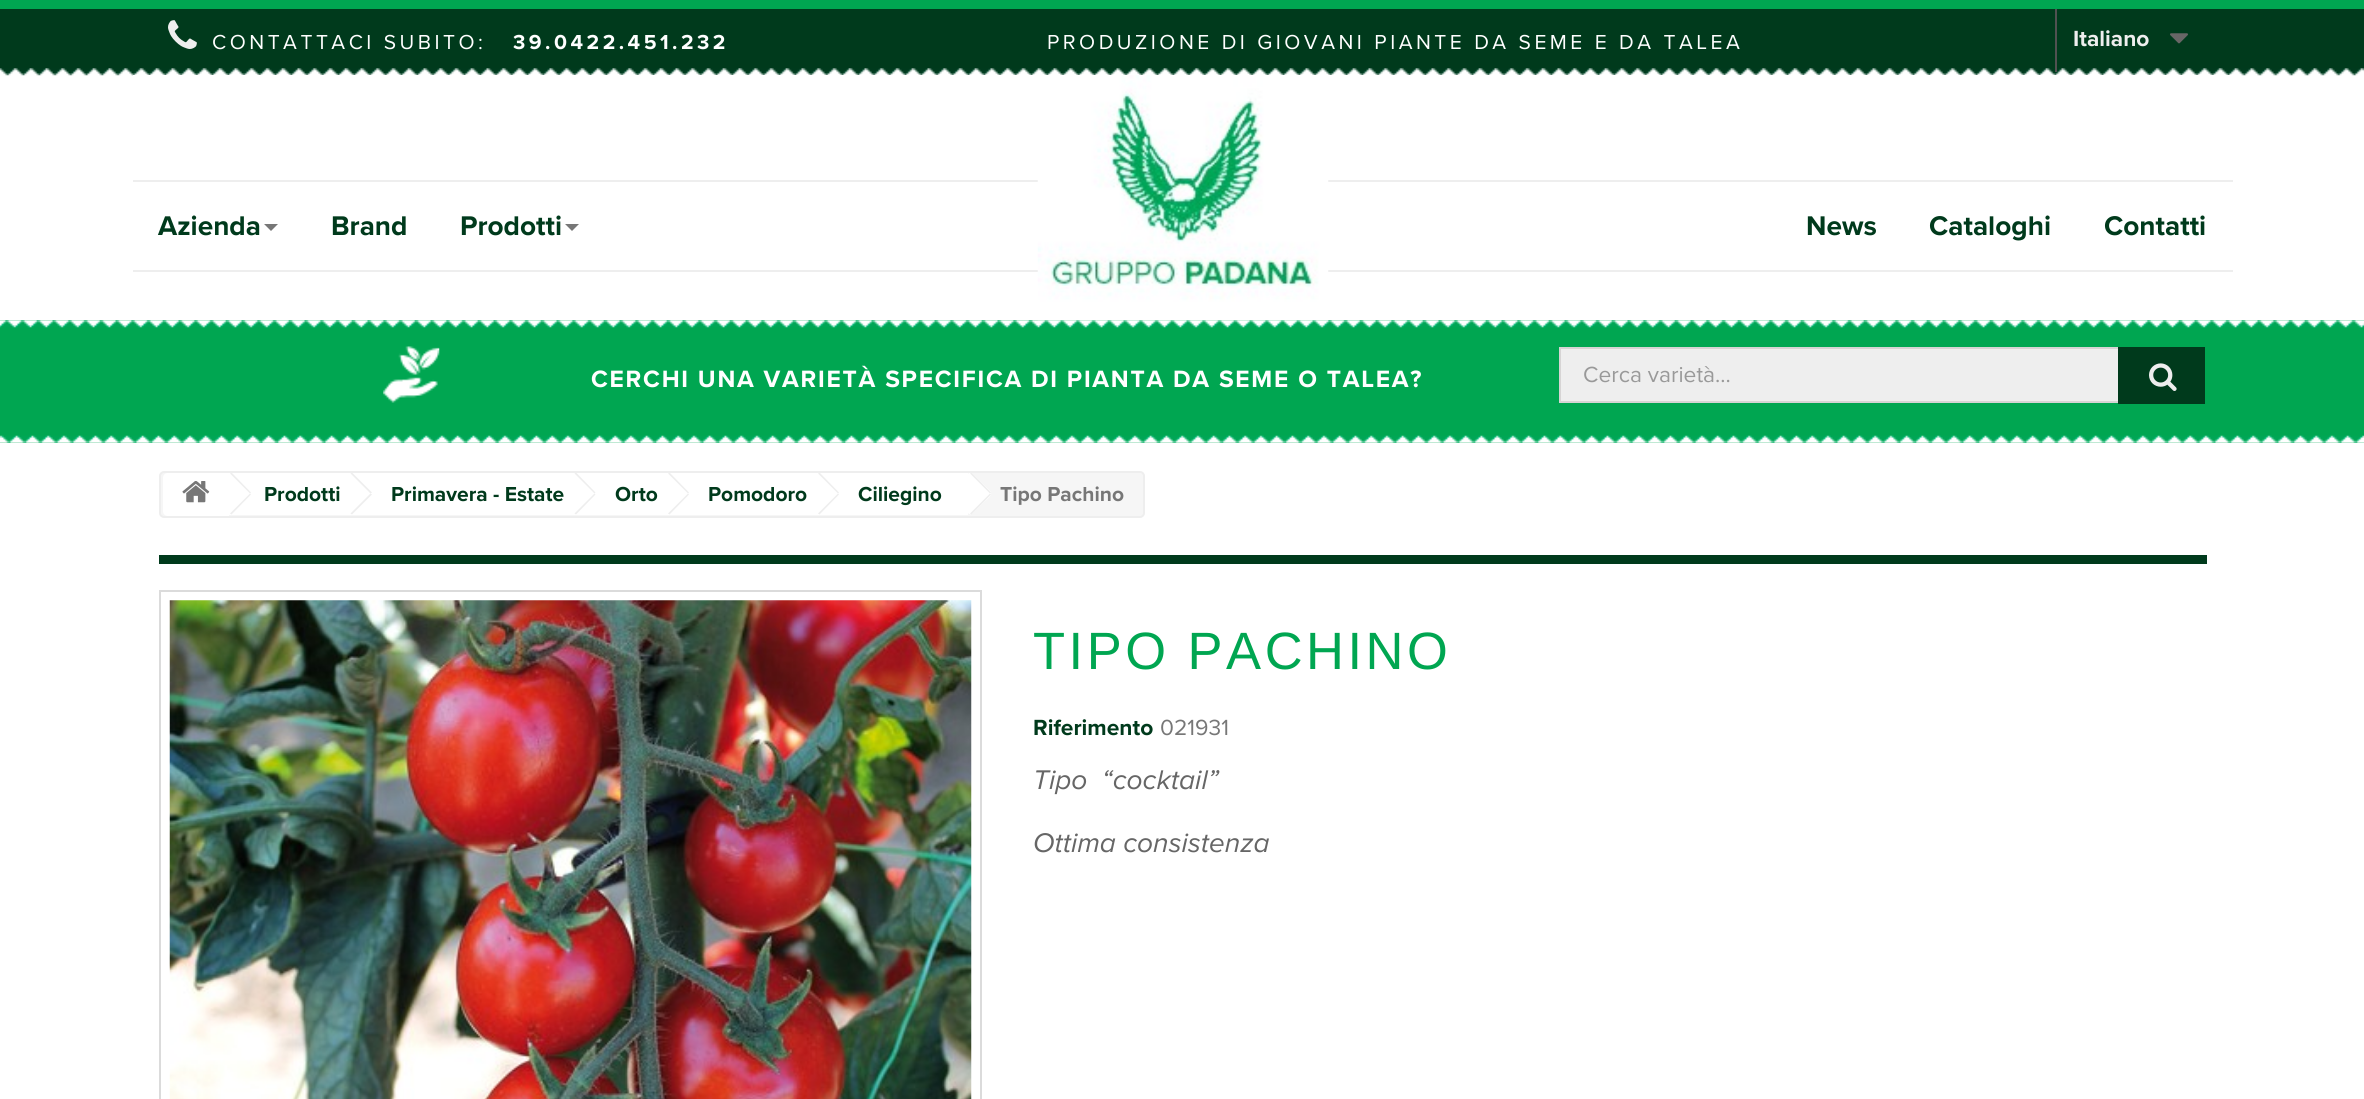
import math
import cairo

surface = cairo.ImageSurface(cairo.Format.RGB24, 2364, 1099)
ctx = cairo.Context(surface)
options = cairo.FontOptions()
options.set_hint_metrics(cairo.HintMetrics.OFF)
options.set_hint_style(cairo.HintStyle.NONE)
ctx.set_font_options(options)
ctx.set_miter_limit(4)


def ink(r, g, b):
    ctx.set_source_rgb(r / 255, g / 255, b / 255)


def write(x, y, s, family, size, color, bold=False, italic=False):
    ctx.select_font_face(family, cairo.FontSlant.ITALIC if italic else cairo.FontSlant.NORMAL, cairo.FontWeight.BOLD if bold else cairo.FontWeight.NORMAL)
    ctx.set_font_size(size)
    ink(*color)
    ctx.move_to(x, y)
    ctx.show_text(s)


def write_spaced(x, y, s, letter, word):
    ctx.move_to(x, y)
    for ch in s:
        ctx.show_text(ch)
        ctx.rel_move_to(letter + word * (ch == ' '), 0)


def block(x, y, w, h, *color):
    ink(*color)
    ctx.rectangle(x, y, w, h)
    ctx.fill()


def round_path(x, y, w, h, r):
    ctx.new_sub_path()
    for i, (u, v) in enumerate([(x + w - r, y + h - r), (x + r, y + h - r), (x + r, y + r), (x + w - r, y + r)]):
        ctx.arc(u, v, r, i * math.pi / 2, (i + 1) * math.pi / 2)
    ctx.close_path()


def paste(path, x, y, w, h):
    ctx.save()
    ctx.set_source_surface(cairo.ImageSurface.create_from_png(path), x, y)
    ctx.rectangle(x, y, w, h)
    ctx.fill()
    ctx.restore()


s1 = dict(family="Proxima Nova", size=22.75, color=(238, 238, 238), bold=True)
s2 = dict(family="Proxima Nova", size=28, color=(0, 58, 28), bold=True)
s3 = dict(family="Proxima Nova", size=22.75, color=(153, 153, 153))
s4 = dict(family="Proxima Nova", size=21, color=(0, 58, 28), bold=True)
s5 = dict(family="Proxima Nova", size=21, color=(119, 119, 119), bold=True)
s6 = dict(family="Proxima Nova", size=22.75, color=(0, 58, 28), bold=True)
s7 = dict(family="Proxima Nova", size=22.75, color=(119, 119, 119))
s8 = dict(family="Proxima Nova", size=28, color=(102, 102, 102), italic=True)

ink(255, 255, 255)
ctx.paint()
block(0, 9, 2364, 60, 0, 58, 28)
paste("pic1.png", 0, 68, 2364, 8)
block(0, 0, 2364, 9, 0, 166, 81)
paste("pic2.png", 168, 20, 29, 29)
ctx.select_font_face("Proxima Nova")
ctx.set_font_size(21)
ink(255, 255, 255)
write_spaced(212, 49, "CONTATTACI SUBITO:", 3.5, 0)
ctx.select_font_face("Proxima Nova", cairo.FontSlant.NORMAL, cairo.FontWeight.BOLD)
write_spaced(513, 49, "39.0422.451.232", 3.5, 0)
ctx.select_font_face("Proxima Nova")
write_spaced(1047, 49, "PRODUZIONE DI GIOVANI PIANTE DA SEME E DA TALEA", 3.5, 0)
block(2055, 9, 2, 63, 81, 81, 81)
write(2073, 46, "Italiano", **s1)
paste("pic3.png", 2170, 33, 18, 11)
block(133, 75, 2099, 1, 255, 255, 255)
block(133, 180, 2100, 2, 238, 238, 238)
block(133, 270, 2100, 2, 238, 238, 238)
block(0, 320, 2364, 123, 0, 166, 81)
paste("pic5.png", 0, 320, 2364, 8)
paste("pic4.png", 1037, 75, 292, 246)
write(158, 235, "Azienda", **s2)
ink(119, 119, 119)
ctx.new_path()
ctx.move_to(264, 224)
ctx.line_to(278, 224)
ctx.line_to(271, 231)
ctx.close_path()
ctx.fill()
write(331, 235, "Brand", **s2)
write(460, 235, "Prodotti", **s2)
ink(119, 119, 119)
ctx.new_path()
ctx.move_to(565, 224)
ctx.line_to(579, 224)
ctx.line_to(572, 231)
ctx.close_path()
ctx.fill()
write(1806, 235, "News", **s2)
write(1929, 235, "Cataloghi", **s2)
write(2104, 235, "Contatti", **s2)
paste("pic6.png", 383, 346, 57, 57)
ctx.set_font_size(24.5)
ink(255, 255, 255)
write_spaced(591, 387, "CERCHI UNA VARIETÀ SPECIFICA DI PIANTA DA SEME O TALEA?", 1.75, 0)
block(1561, 349, 557, 52, 238, 238, 238)
ctx.rectangle(1560, 348, 644, 54)
ink(214, 212, 212)
ctx.stroke()
write(1583, 382, "Cerca varietà...", **s3)
block(2118, 347, 87, 57, 0, 58, 28)
paste("pic7.png", 2149, 363, 28, 28)
paste("pic8.png", 0, 435, 2364, 8)
ink(246, 246, 246)
round_path(160, 472, 984, 45, 4)
ctx.fill_preserve()
ink(238, 238, 238)
ctx.stroke()
ink(255, 255, 255)
ctx.new_path()
ctx.move_to(168, 473)
ctx.line_to(229, 473)
ctx.line_to(229, 516)
ctx.line_to(168, 516)
ctx.curve_to(165, 516, 163, 514, 163, 511)
ctx.line_to(163, 478)
ctx.curve_to(163, 475, 165, 473, 168, 473)
ctx.close_path()
ctx.fill()
paste("pic9.png", 182, 481, 28, 22)
block(229, 473, 123, 42, 255, 255, 255)
ink(238, 238, 238)
ctx.new_path()
ctx.move_to(232, 473)
ctx.line_to(251, 492.5)
ctx.line_to(250, 493.5)
ctx.line_to(230, 473.5)
ctx.line_to(231, 473)
ctx.close_path()
ctx.fill()
ctx.new_path()
ctx.move_to(250, 493.5)
ctx.line_to(251, 494.5)
ctx.line_to(231.5, 514.5)
ctx.line_to(230, 513.5)
ctx.close_path()
ctx.fill()
write(264, 501, "Prodotti", **s4)
ink(255, 255, 255)
ctx.new_path()
ctx.move_to(371, 474)
ctx.line_to(370, 473)
ctx.line_to(367, 473)
ctx.line_to(351, 488)
ctx.curve_to(346, 493, 346, 494, 351, 499)
ctx.line_to(366, 513)
ctx.curve_to(369, 516, 371, 513, 374, 510)
ctx.line_to(382, 502)
ctx.curve_to(384, 500, 392, 495, 388, 491)
ctx.close_path()
ctx.fill()
block(352, 473, 224, 42, 255, 255, 255)
ink(238, 238, 238)
ctx.new_path()
ctx.move_to(352.5, 473)
ctx.line_to(372, 492.5)
ctx.line_to(370.5, 493.5)
ctx.line_to(350.5, 473.5)
ctx.line_to(351, 473)
ctx.close_path()
ctx.fill()
ctx.new_path()
ctx.move_to(370.5, 493.5)
ctx.line_to(372, 494.5)
ctx.line_to(352, 514.5)
ctx.line_to(350.5, 513.5)
ctx.close_path()
ctx.fill()
write(391, 501, "Primavera - Estate", **s4)
ink(255, 255, 255)
ctx.new_path()
ctx.move_to(595, 474)
ctx.line_to(594, 473)
ctx.line_to(591, 473)
ctx.line_to(575, 488)
ctx.curve_to(570, 493, 570, 494, 575, 499)
ctx.line_to(590, 513)
ctx.curve_to(593, 516, 595, 513, 598, 510)
ctx.line_to(606, 502)
ctx.curve_to(608, 500, 616, 495, 612, 491)
ctx.close_path()
ctx.fill()
block(576, 473, 94, 42, 255, 255, 255)
ink(238, 238, 238)
ctx.new_path()
ctx.move_to(576.5, 473)
ctx.line_to(595.5, 492.5)
ctx.line_to(594.5, 493.5)
ctx.line_to(574.5, 473.5)
ctx.line_to(575, 473)
ctx.close_path()
ctx.fill()
ctx.new_path()
ctx.move_to(594.5, 493.5)
ctx.line_to(595.5, 494.5)
ctx.line_to(576, 514.5)
ctx.line_to(574.5, 513.5)
ctx.close_path()
ctx.fill()
write(615, 501, "Orto", **s4)
ink(255, 255, 255)
ctx.new_path()
ctx.move_to(688, 474)
ctx.line_to(687, 473)
ctx.line_to(684, 473)
ctx.line_to(666, 491)
ctx.line_to(665, 494)
ctx.curve_to(665, 497, 672, 502, 674, 504)
ctx.curve_to(676, 506, 684, 516, 687, 514)
ctx.line_to(702, 499)
ctx.curve_to(704, 497, 709, 493, 705, 491)
ctx.close_path()
ctx.fill()
block(670, 473, 149, 42, 255, 255, 255)
ink(238, 238, 238)
ctx.new_path()
ctx.move_to(670, 473)
ctx.line_to(689, 492.5)
ctx.line_to(688, 493.5)
ctx.line_to(668, 473.5)
ctx.line_to(669, 473)
ctx.close_path()
ctx.fill()
ctx.new_path()
ctx.move_to(688, 493.5)
ctx.line_to(689, 494.5)
ctx.line_to(669.5, 514.5)
ctx.line_to(668, 513.5)
ctx.close_path()
ctx.fill()
write(708, 501, "Pomodoro", **s4)
ink(255, 255, 255)
ctx.new_path()
ctx.move_to(838, 474)
ctx.line_to(837, 473)
ctx.line_to(834, 473)
ctx.line_to(815, 491)
ctx.curve_to(812, 494, 817, 497, 819, 499)
ctx.line_to(833, 513)
ctx.curve_to(836, 516, 838, 513, 841, 510)
ctx.line_to(852, 499)
ctx.curve_to(854, 497, 859, 493, 855, 491)
ctx.close_path()
ctx.fill()
block(819, 473, 149, 42, 255, 255, 255)
ink(238, 238, 238)
ctx.new_path()
ctx.move_to(820, 473)
ctx.line_to(839, 492.5)
ctx.line_to(838, 493.5)
ctx.line_to(818, 473.5)
ctx.line_to(819, 473)
ctx.close_path()
ctx.fill()
ctx.new_path()
ctx.move_to(838, 493.5)
ctx.line_to(839, 494.5)
ctx.line_to(819.5, 514.5)
ctx.line_to(818, 513.5)
ctx.close_path()
ctx.fill()
write(858, 501, "Ciliegino", **s4)
ink(255, 255, 255)
ctx.new_path()
ctx.move_to(973, 474)
ctx.line_to(972, 473)
ctx.line_to(969, 473)
ctx.line_to(953, 488)
ctx.curve_to(948, 493, 948, 494, 953, 499)
ctx.line_to(968, 513)
ctx.curve_to(971, 516, 973, 513, 976, 510)
ctx.line_to(984, 502)
ctx.curve_to(986, 500, 994, 495, 990, 491)
ctx.close_path()
ctx.fill()
ink(238, 238, 238)
ctx.new_path()
ctx.move_to(972, 473)
ctx.line_to(991, 492.5)
ctx.line_to(990, 493.5)
ctx.line_to(970, 473.5)
ctx.line_to(971, 473)
ctx.close_path()
ctx.fill()
ctx.new_path()
ctx.move_to(990, 493.5)
ctx.line_to(991, 494.5)
ctx.line_to(971.5, 514.5)
ctx.line_to(970, 513.5)
ctx.close_path()
ctx.fill()
write(1000, 501, "Tipo Pachino", **s5)
block(159, 555, 2048, 9, 0, 58, 28)
ctx.rectangle(160, 591, 821, 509)
ink(219, 219, 219)
ctx.stroke()
paste("pic10.png", 169, 600, 803, 499)
ctx.select_font_face("Liberation Sans")
ctx.set_font_size(52.5)
ink(0, 166, 81)
write_spaced(1033, 669, "TIPO PACHINO", 3.5, 0)
write(1033, 735, "Riferimento", **s6)
write(1160, 735, "021931", **s7)
write(1033, 789, "Tipo  “cocktail”", **s8)
write(1033, 852, "Ottima consistenza", **s8)
surface.write_to_png("screenshot.png")
